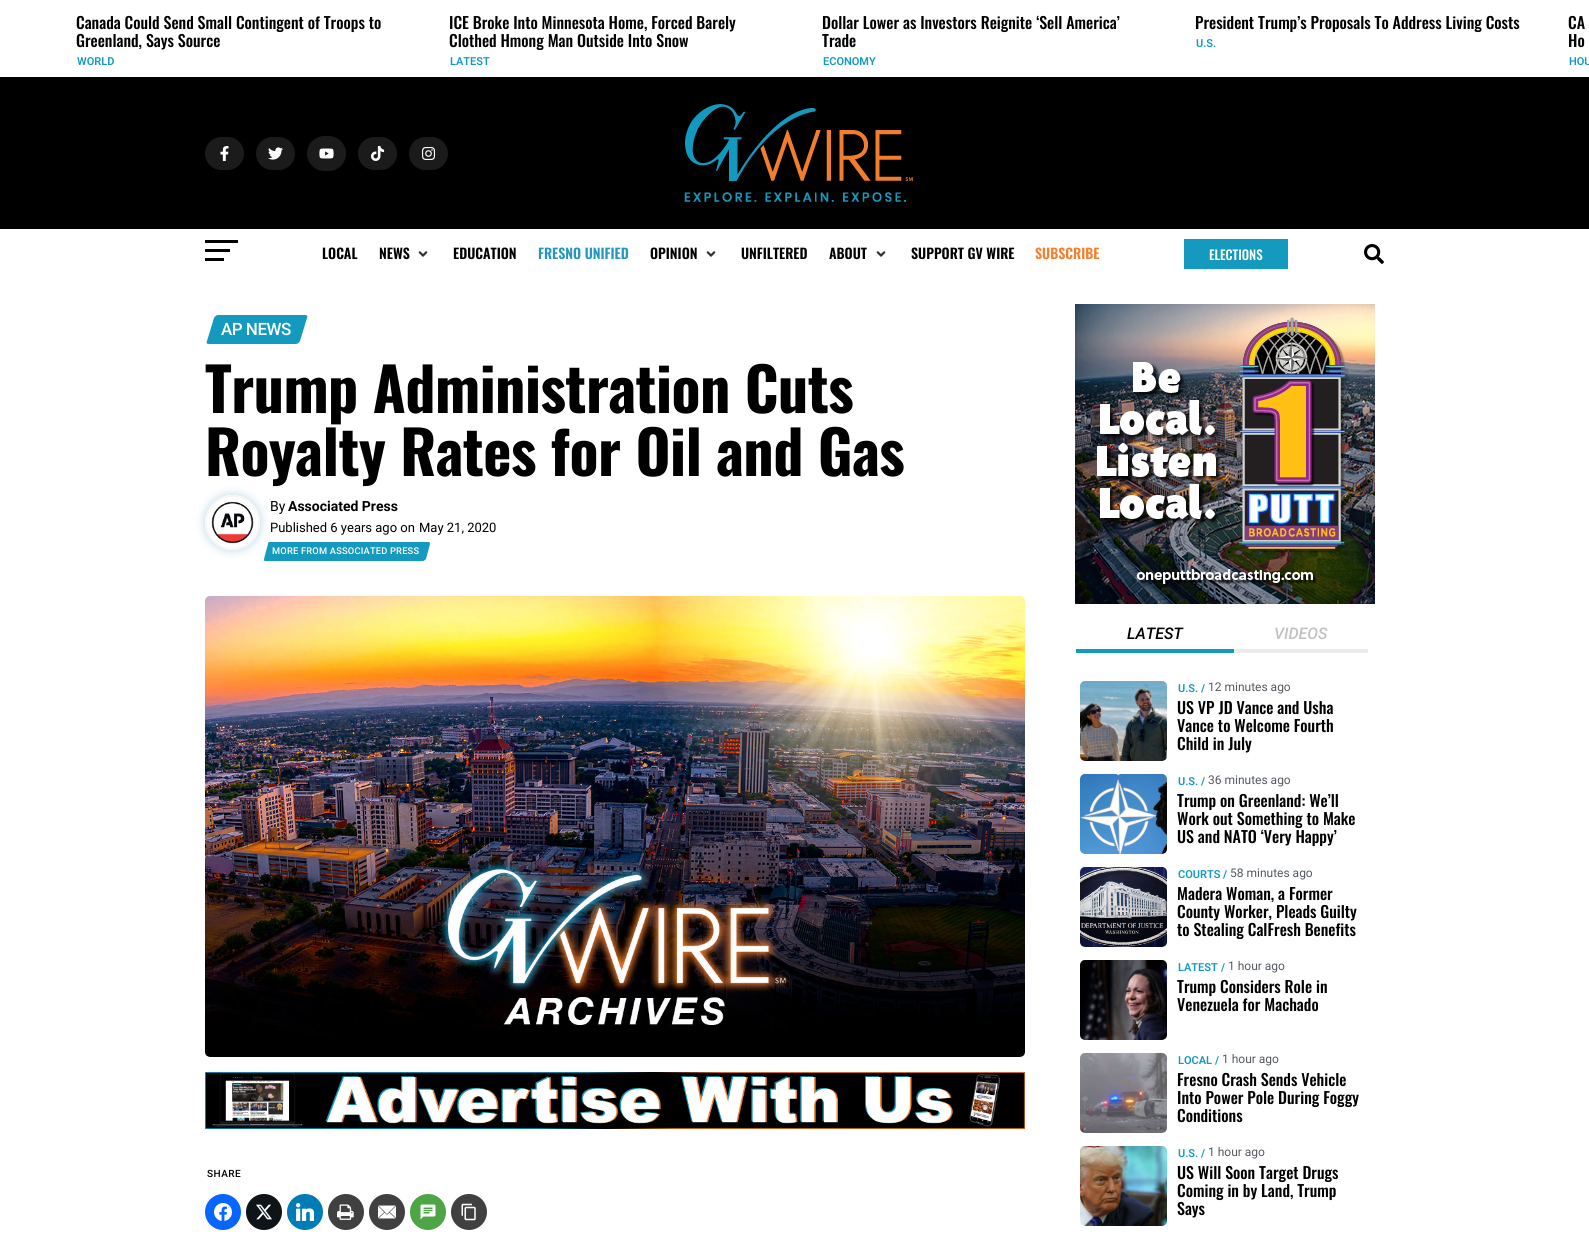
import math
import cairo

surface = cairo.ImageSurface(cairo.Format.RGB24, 1589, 1236)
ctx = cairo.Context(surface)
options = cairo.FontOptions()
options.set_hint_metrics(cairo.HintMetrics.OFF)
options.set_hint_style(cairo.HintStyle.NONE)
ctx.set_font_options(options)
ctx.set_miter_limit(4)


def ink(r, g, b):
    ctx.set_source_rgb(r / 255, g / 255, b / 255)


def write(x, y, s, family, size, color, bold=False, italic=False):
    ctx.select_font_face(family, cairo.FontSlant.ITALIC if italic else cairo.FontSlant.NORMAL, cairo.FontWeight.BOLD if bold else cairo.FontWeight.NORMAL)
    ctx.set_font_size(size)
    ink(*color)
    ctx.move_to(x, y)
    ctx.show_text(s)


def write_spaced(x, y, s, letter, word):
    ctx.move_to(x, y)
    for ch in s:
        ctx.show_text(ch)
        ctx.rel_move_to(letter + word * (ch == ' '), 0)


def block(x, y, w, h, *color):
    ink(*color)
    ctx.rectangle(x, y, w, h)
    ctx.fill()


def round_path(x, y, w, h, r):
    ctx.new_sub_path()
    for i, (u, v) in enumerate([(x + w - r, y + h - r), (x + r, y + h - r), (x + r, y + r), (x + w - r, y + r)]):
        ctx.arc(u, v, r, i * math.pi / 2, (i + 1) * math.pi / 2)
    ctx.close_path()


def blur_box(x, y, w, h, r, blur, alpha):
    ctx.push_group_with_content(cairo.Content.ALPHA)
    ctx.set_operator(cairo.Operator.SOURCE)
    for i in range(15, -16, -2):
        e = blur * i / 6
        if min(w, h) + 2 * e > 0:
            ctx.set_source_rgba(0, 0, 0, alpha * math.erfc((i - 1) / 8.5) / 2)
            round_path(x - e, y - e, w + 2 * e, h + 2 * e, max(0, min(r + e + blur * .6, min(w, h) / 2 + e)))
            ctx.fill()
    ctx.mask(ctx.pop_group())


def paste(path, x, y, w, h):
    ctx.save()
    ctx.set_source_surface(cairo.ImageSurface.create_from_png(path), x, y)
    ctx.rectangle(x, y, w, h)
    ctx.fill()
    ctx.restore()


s1 = dict(family="Oswald Medium", size=16, color=(0, 0, 0))
s2 = dict(family="Roboto SemiBold", size=11, color=(19, 154, 190))
s3 = dict(family="Oswald SemiBold", size=14, color=(0, 0, 0))
s4 = dict(family="Oswald SemiBold", size=14, color=(37, 150, 190))
s5 = dict(family="Oswald SemiBold", size=14, color=(245, 127, 45))
s6 = dict(family="Oswald Medium", size=13, color=(255, 255, 255))
s7 = dict(family="Roboto", size=14, color=(0, 0, 0))
s8 = dict(family="Roboto", size=14, color=(0, 0, 0), bold=True)
s9 = dict(family="Roboto", size=13, color=(0, 0, 0))
s10 = dict(family="Roboto Medium", size=16, color=(0, 0, 0), italic=True)
s11 = dict(family="Roboto Medium", size=16, color=(193, 193, 193), italic=True)
s12 = dict(family="Roboto", size=11, color=(19, 154, 190), bold=True)
s13 = dict(family="Roboto", size=12, color=(84, 89, 95))

ink(255, 255, 255)
ctx.paint()
write(76, 29, "Canada Could Send Small Contingent of Troops to", **s1)
write(76, 47, "Greenland, Says Source", **s1)
write(77, 65, "WORLD", **s2)
write(449, 29, "ICE Broke Into Minnesota Home, Forced Barely", **s1)
write(449, 47, "Clothed Hmong Man Outside Into Snow", **s1)
write(450, 65, "LATEST", **s2)
write(822, 29, "Dollar Lower as Investors Reignite ‘Sell America’", **s1)
write(822, 47, "Trade", **s1)
write(823, 65, "ECONOMY", **s2)
write(1195, 29, "President Trump’s Proposals To Address Living Costs", **s1)
write(1196, 47, "U.S.", **s2)
write(1568, 29, "CA", **s1)
write(1568, 47, "Ho", **s1)
write(1569, 65, "HOU", **s2)
block(0, 77, 1589, 152, 0, 0, 0)
ink(27, 27, 27)
round_path(205, 137, 39, 33, 16.5)
ctx.fill()
paste("pic1.png", 220, 146, 9, 15)
round_path(256, 137, 39, 33, 16.5)
ctx.fill()
paste("pic2.png", 268, 147, 15, 13)
round_path(307, 136, 39, 35, 17.5)
ctx.fill()
paste("pic3.png", 319, 148, 15, 11)
round_path(358, 137, 39, 33, 16.5)
ctx.fill()
paste("pic4.png", 371, 146, 14, 15)
round_path(409, 137, 39, 33, 16.5)
ctx.fill()
paste("pic5.png", 422, 147, 14, 13)
paste("pic6.png", 684, 104, 229, 98)
block(205, 240, 33, 3, 0, 0, 0)
block(205, 249, 25, 3, 0, 0, 0)
block(205, 258, 19, 3, 0, 0, 0)
write(322, 259, "LOCAL", **s3)
write(379, 259, "NEWS", **s3)
paste("pic7.png", 418, 251, 10, 6)
write(453, 259, "EDUCATION", **s3)
write(538, 259, "FRESNO UNIFIED", **s4)
write(650, 259, "OPINION", **s3)
paste("pic7.png", 706, 251, 10, 6)
write(741, 259, "UNFILTERED", **s3)
write(829, 259, "ABOUT", **s3)
paste("pic7.png", 876, 251, 10, 6)
write(911, 259, "SUPPORT GV WIRE", **s3)
write(1035, 259, "SUBSCRIBE", **s5)
block(1184, 239, 104, 30, 19, 154, 190)
write(1209, 260, "ELECTIONS", **s6)
paste("pic8.png", 1364, 244, 20, 20)
ink(19, 154, 190)
ctx.new_path()
ctx.move_to(218, 315)
ctx.line_to(305, 315)
ctx.curve_to(307, 315, 308, 316, 307, 318)
ctx.line_to(300, 341)
ctx.curve_to(299, 343, 297, 344, 296, 344)
ctx.line_to(209, 344)
ctx.curve_to(207, 344, 206, 343, 207, 341)
ctx.line_to(214, 318)
ctx.curve_to(215, 316, 217, 315, 218, 315)
ctx.close_path()
ctx.fill()
ctx.select_font_face("Roboto Medium")
ctx.set_font_size(17)
ink(255, 255, 255)
write_spaced(221, 335, "AP NEWS", -0.5, 0)
ctx.select_font_face("Oswald", cairo.FontSlant.NORMAL, cairo.FontWeight.BOLD)
ctx.set_font_size(60)
ink(0, 0, 0)
write_spaced(205, 413, "Trump Administration Cuts", -0.5, 0)
ctx.save()
ctx.set_fill_rule(cairo.FillRule.EVEN_ODD)
ctx.new_path()
ctx.move_to(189, 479)
ctx.line_to(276, 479)
ctx.line_to(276, 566)
ctx.line_to(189, 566)
ctx.close_path()
ctx.move_to(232.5, 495)
ctx.curve_to(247.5, 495, 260, 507.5, 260, 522.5)
ctx.curve_to(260, 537.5, 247.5, 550, 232.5, 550)
ctx.curve_to(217.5, 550, 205, 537.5, 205, 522.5)
ctx.curve_to(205, 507.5, 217.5, 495, 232.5, 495)
ctx.close_path()
ctx.clip()
ink(10, 115, 155)
blur_box(205, 495, 55, 55, 27.5, 5, 0.28)
ctx.restore()
write_spaced(205, 476, "Royalty Rates for Oil and Gas", -0.5, 0)
ctx.new_path()
ctx.arc(232.5, 522.5, 26.5, 0, 2 * math.pi)
ink(247, 247, 247)
ctx.stroke()
paste("pic9.png", 211, 501, 43, 43)
write(270, 511, "By", **s7)
write(288, 511, "Associated Press", **s8)
write(270, 532, "Published 6 years ago on", **s9)
write(419, 532, "May 21, 2020", **s9)
ink(19, 154, 190)
ctx.new_path()
ctx.move_to(270, 542)
ctx.line_to(428, 542)
ctx.curve_to(429, 542, 430, 542, 430, 544)
ctx.line_to(426, 559)
ctx.curve_to(425, 560, 424, 561, 423, 561)
ctx.line_to(265, 561)
ctx.curve_to(264, 561, 264, 560, 264, 559)
ctx.line_to(268, 544)
ctx.curve_to(268, 542, 269, 542, 270, 542)
ctx.close_path()
ctx.fill()
ctx.select_font_face("Roboto Medium")
ctx.set_font_size(9.3)
ink(255, 255, 255)
write_spaced(272, 554, "MORE FROM ASSOCIATED PRESS", 0.2, 0)
paste("pic10.png", 205, 596, 820, 461)
paste("pic11.png", 205, 1072, 820, 57)
ctx.set_font_size(10)
ink(0, 0, 0)
write_spaced(207, 1177, "SHARE", 0.5, 0)
ink(8, 102, 255)
ctx.new_path()
ctx.arc(223, 1212, 18, 0, 2 * math.pi)
ctx.fill()
paste("pic12.png", 214, 1203, 18, 18)
ink(15, 20, 25)
ctx.arc(264, 1212, 18, 0, 2 * math.pi)
ctx.fill()
paste("pic13.png", 256, 1204, 16, 16)
ink(0, 123, 182)
ctx.arc(305, 1212, 18, 0, 2 * math.pi)
ctx.fill()
paste("pic14.png", 296, 1203, 18, 18)
ink(64, 64, 64)
ctx.arc(346, 1212, 18, 0, 2 * math.pi)
ctx.fill()
paste("pic15.png", 337, 1204, 17, 16)
ctx.arc(387, 1212, 18, 0, 2 * math.pi)
ctx.fill()
paste("pic16.png", 378, 1205, 18, 14)
ink(78, 165, 70)
ctx.arc(428, 1212, 18, 0, 2 * math.pi)
ctx.fill()
paste("pic17.png", 420, 1204, 16, 16)
ink(64, 64, 64)
ctx.arc(469, 1212, 18, 0, 2 * math.pi)
ctx.fill()
paste("pic18.png", 461, 1203, 15, 18)
paste("pic19.png", 1075, 304, 300, 300)
block(1076, 649, 162, 4, 19, 154, 190)
write(1127, 639, "LATEST", **s10)
block(1234, 649, 134, 4, 235, 235, 235)
write(1274, 639, "VIDEOS", **s11)
paste("pic20.png", 1080, 681, 87, 80)
write(1178, 692, "U.S.", **s2)
write(1201, 692, "/", **s12)
write(1208, 691, "12 minutes ago", **s13)
write(1177, 714, "US VP JD Vance and Usha", **s1)
write(1177, 732, "Vance to Welcome Fourth", **s1)
write(1177, 750, "Child in July", **s1)
paste("pic21.png", 1080, 774, 87, 80)
write(1178, 785, "U.S.", **s2)
write(1201, 785, "/", **s12)
write(1208, 784, "36 minutes ago", **s13)
write(1177, 807, "Trump on Greenland: We’ll", **s1)
write(1177, 825, "Work out Something to Make", **s1)
write(1177, 843, "US and NATO ‘Very Happy’", **s1)
paste("pic22.png", 1080, 867, 87, 80)
write(1178, 878, "COURTS", **s2)
write(1223, 878, "/", **s12)
write(1230, 877, "58 minutes ago", **s13)
write(1177, 900, "Madera Woman, a Former", **s1)
write(1177, 918, "County Worker, Pleads Guilty", **s1)
write(1177, 936, "to Stealing CalFresh Benefits", **s1)
paste("pic23.png", 1080, 960, 87, 80)
write(1178, 971, "LATEST", **s2)
write(1221, 971, "/", **s12)
write(1228, 970, "1 hour ago", **s13)
write(1177, 993, "Trump Considers Role in", **s1)
write(1177, 1011, "Venezuela for Machado", **s1)
paste("pic24.png", 1080, 1053, 87, 80)
write(1178, 1064, "LOCAL", **s2)
write(1215, 1064, "/", **s12)
write(1222, 1063, "1 hour ago", **s13)
write(1177, 1086, "Fresno Crash Sends Vehicle", **s1)
write(1177, 1104, "Into Power Pole During Foggy", **s1)
write(1177, 1122, "Conditions", **s1)
paste("pic25.png", 1080, 1146, 87, 80)
write(1178, 1157, "U.S.", **s2)
write(1201, 1157, "/", **s12)
write(1208, 1156, "1 hour ago", **s13)
write(1177, 1179, "US Will Soon Target Drugs", **s1)
write(1177, 1197, "Coming in by Land, Trump", **s1)
write(1177, 1215, "Says", **s1)
surface.write_to_png("screenshot.png")
